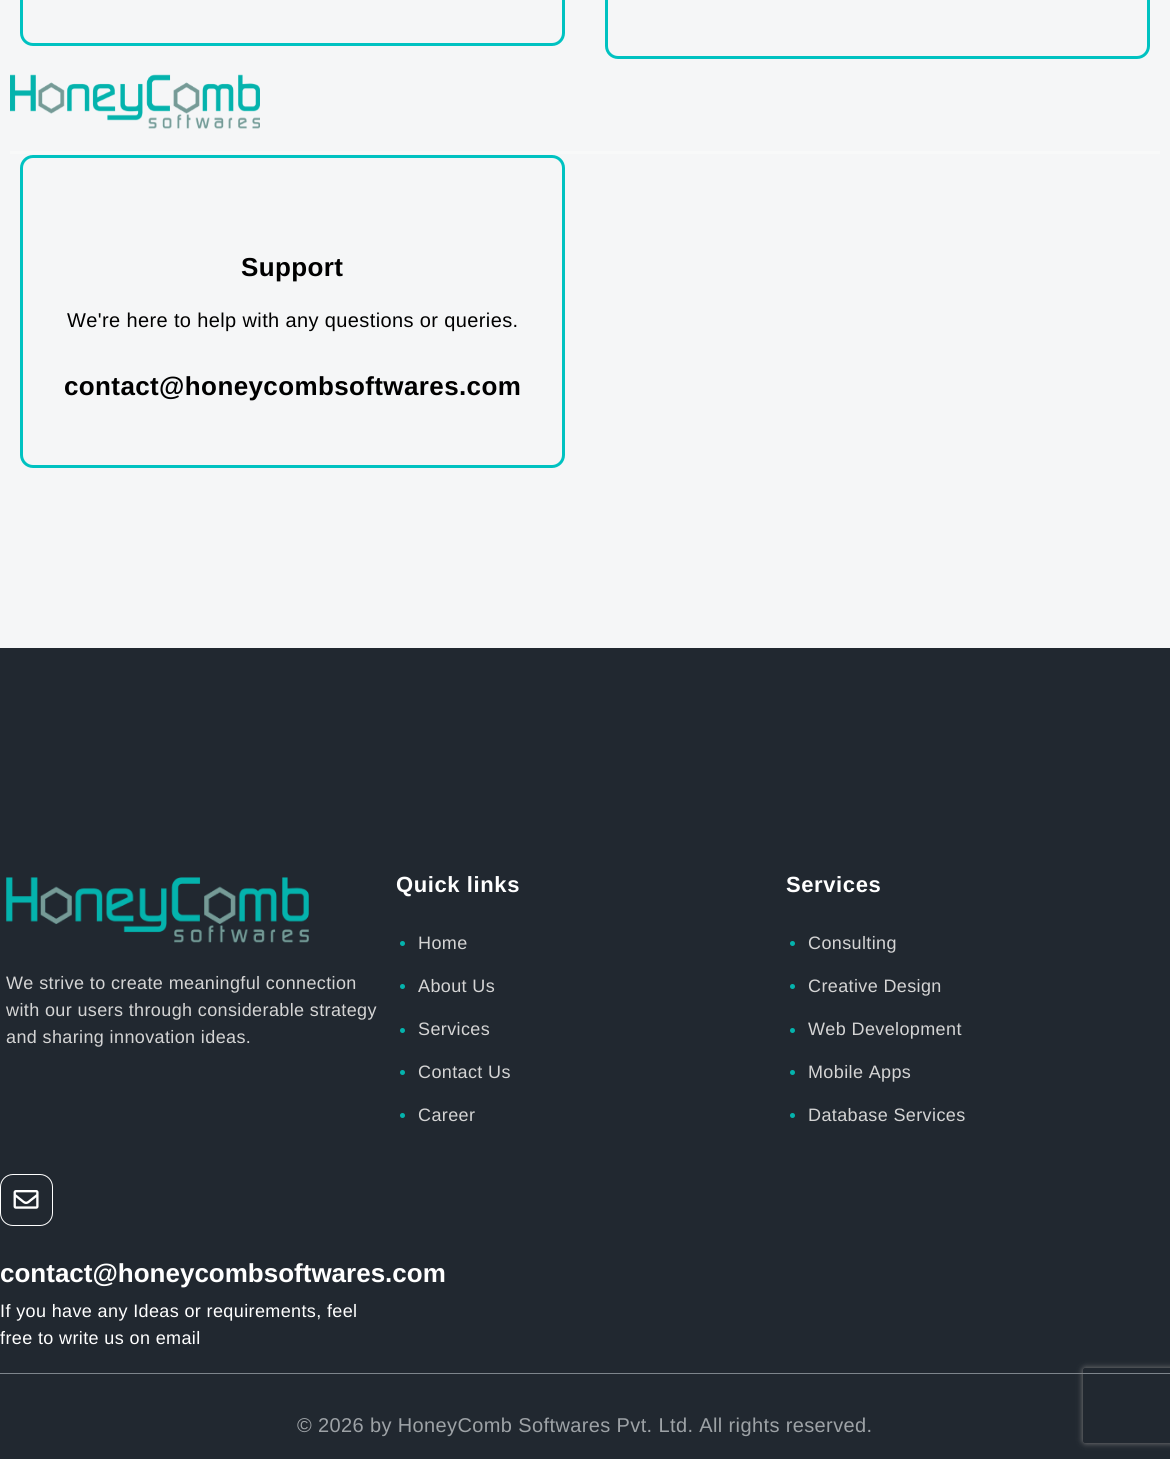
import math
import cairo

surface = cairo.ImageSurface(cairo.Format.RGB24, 1170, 1459)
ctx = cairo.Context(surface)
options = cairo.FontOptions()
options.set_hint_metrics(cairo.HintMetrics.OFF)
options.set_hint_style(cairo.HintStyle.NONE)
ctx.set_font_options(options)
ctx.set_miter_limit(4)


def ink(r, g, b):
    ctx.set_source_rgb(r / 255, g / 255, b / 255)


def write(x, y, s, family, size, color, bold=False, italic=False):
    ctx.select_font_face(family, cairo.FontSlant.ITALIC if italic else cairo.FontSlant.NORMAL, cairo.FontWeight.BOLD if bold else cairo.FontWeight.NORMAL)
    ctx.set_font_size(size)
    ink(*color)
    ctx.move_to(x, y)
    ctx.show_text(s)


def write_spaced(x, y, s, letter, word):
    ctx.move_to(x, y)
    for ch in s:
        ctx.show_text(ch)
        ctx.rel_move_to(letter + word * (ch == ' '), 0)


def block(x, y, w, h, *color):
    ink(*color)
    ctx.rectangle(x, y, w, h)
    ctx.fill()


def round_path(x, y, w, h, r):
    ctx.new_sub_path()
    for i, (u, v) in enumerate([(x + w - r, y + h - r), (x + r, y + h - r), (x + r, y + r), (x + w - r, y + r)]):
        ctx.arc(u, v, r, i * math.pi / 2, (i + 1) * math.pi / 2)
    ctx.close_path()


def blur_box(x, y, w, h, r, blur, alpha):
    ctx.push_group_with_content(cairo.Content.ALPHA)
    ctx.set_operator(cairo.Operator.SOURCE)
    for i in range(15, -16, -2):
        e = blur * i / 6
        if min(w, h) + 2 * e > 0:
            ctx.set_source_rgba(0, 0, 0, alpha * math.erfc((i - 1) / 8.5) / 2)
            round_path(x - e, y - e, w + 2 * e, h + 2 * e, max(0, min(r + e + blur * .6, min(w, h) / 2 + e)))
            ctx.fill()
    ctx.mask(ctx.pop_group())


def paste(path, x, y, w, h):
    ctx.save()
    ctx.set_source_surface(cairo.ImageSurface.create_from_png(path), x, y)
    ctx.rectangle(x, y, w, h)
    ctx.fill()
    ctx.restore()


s1 = dict(family="Liberation Sans", size=26, color=(255, 255, 255), bold=True)

ink(245, 246, 247)
ctx.paint()
block(10, 151, 1150, 3, 248, 249, 249)
paste("pic1.png", 10, 74, 250, 55)
round_path(21.5, -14.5, 542, 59, 11.5)
ink(0, 194, 193)
ctx.set_line_width(3)
ctx.stroke()
round_path(606.5, -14.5, 542, 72, 11.5)
ctx.stroke()
round_path(21.5, 156.5, 542, 310, 11.5)
ctx.stroke()
ctx.select_font_face("Liberation Sans", cairo.FontSlant.NORMAL, cairo.FontWeight.BOLD)
ctx.set_font_size(26)
ink(0, 0, 0)
write_spaced(241, 276, "Support", 0.38, 0)
ctx.select_font_face("Liberation Sans")
ctx.set_font_size(20)
write_spaced(67, 327, "We're here to help with any questions or queries.", 0.38, 0)
ctx.select_font_face("Liberation Sans", cairo.FontSlant.NORMAL, cairo.FontWeight.BOLD)
ctx.set_font_size(26)
write_spaced(64, 395, "contact@honeycombsoftwares.com", 0.38, 0)
block(0, 648, 1170, 811, 33, 40, 48)
paste("pic2.png", 6, 877, 303, 66)
ctx.select_font_face("Liberation Sans")
ctx.set_font_size(18)
ink(212, 212, 212)
write_spaced(6, 989, "We strive to create meaningful connection", 0.38, 0)
write_spaced(6, 1016, "with our users through considerable strategy", 0.38, 0)
write_spaced(6, 1043, "and sharing innovation ideas.", 0.38, 0)
ctx.select_font_face("Liberation Sans", cairo.FontSlant.NORMAL, cairo.FontWeight.BOLD)
ctx.set_font_size(22)
ink(255, 255, 255)
write_spaced(396, 892, "Quick links", 0.6, 0)
ink(4, 179, 173)
ctx.new_path()
ctx.arc(402.5, 943.5, 2.5, 0, 2 * math.pi)
ctx.fill()
ctx.select_font_face("Liberation Sans")
ctx.set_font_size(18)
ink(212, 212, 212)
write_spaced(418, 949, "Home", 0.38, 0)
ink(4, 179, 173)
ctx.new_path()
ctx.arc(402.5, 986.5, 2.5, 0, 2 * math.pi)
ctx.fill()
ink(212, 212, 212)
write_spaced(418, 992, "About Us", 0.38, 0)
ink(4, 179, 173)
ctx.new_path()
ctx.arc(402.5, 1030.5, 2.5, 0, 2 * math.pi)
ctx.fill()
ink(212, 212, 212)
write_spaced(418, 1035, "Services", 0.38, 0)
ink(4, 179, 173)
ctx.new_path()
ctx.arc(402.5, 1072.5, 2.5, 0, 2 * math.pi)
ctx.fill()
ink(212, 212, 212)
write_spaced(418, 1078, "Contact Us", 0.38, 0)
ink(4, 179, 173)
ctx.new_path()
ctx.arc(402.5, 1115.5, 2.5, 0, 2 * math.pi)
ctx.fill()
ink(212, 212, 212)
write_spaced(418, 1121, "Career", 0.38, 0)
ctx.select_font_face("Liberation Sans", cairo.FontSlant.NORMAL, cairo.FontWeight.BOLD)
ctx.set_font_size(22)
ink(255, 255, 255)
write_spaced(786, 892, "Services", 0.6, 0)
ink(4, 179, 173)
ctx.new_path()
ctx.arc(792.5, 943.5, 2.5, 0, 2 * math.pi)
ctx.fill()
ctx.select_font_face("Liberation Sans")
ctx.set_font_size(18)
ink(212, 212, 212)
write_spaced(808, 949, "Consulting", 0.38, 0)
ink(4, 179, 173)
ctx.new_path()
ctx.arc(792.5, 986.5, 2.5, 0, 2 * math.pi)
ctx.fill()
ink(212, 212, 212)
write_spaced(808, 992, "Creative Design", 0.38, 0)
ink(4, 179, 173)
ctx.new_path()
ctx.arc(792.5, 1030.5, 2.5, 0, 2 * math.pi)
ctx.fill()
ink(212, 212, 212)
write_spaced(808, 1035, "Web Development", 0.38, 0)
ink(4, 179, 173)
ctx.new_path()
ctx.arc(792.5, 1072.5, 2.5, 0, 2 * math.pi)
ctx.fill()
ink(212, 212, 212)
write_spaced(808, 1078, "Mobile Apps", 0.38, 0)
ink(4, 179, 173)
ctx.new_path()
ctx.arc(792.5, 1115.5, 2.5, 0, 2 * math.pi)
ctx.fill()
ink(212, 212, 212)
write_spaced(808, 1121, "Database Services", 0.38, 0)
round_path(0.5, 1174.5, 52, 51, 12.5)
ink(255, 255, 255)
ctx.set_line_width(1)
ctx.stroke()
paste("pic3.png", 13, 1190, 26, 19)
write(0, 1282, "contact@honeycombsoftwares.com", **s1)
ctx.select_font_face("Liberation Sans")
ctx.set_font_size(18)
write_spaced(0, 1317, "If you have any Ideas or requirements, feel", 0.38, 0)
write_spaced(0, 1344, "free to write us on email", 0.38, 0)
block(0, 1373, 1170, 1, 126, 133, 140)
ctx.set_font_size(20)
ink(157, 162, 166)
write_spaced(297, 1432, "© 2026 by HoneyComb Softwares Pvt. Ltd. All rights reserved.", 0.38, 0)
ctx.save()
ctx.set_fill_rule(cairo.FillRule.EVEN_ODD)
ctx.new_path()
ctx.move_to(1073, 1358)
ctx.line_to(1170, 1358)
ctx.line_to(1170, 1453)
ctx.line_to(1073, 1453)
ctx.close_path()
ctx.move_to(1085.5, 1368)
ctx.line_to(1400.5, 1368)
ctx.curve_to(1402, 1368, 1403, 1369, 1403, 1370.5)
ctx.line_to(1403, 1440.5)
ctx.curve_to(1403, 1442, 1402, 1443, 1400.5, 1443)
ctx.line_to(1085.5, 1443)
ctx.curve_to(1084, 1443, 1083, 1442, 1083, 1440.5)
ctx.line_to(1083, 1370.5)
ctx.curve_to(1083, 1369, 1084, 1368, 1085.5, 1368)
ctx.close_path()
ctx.clip()
ink(128, 128, 128)
blur_box(1083, 1368, 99, 75, 2.5, 3, 1)
ctx.restore()
surface.write_to_png("screenshot.png")
